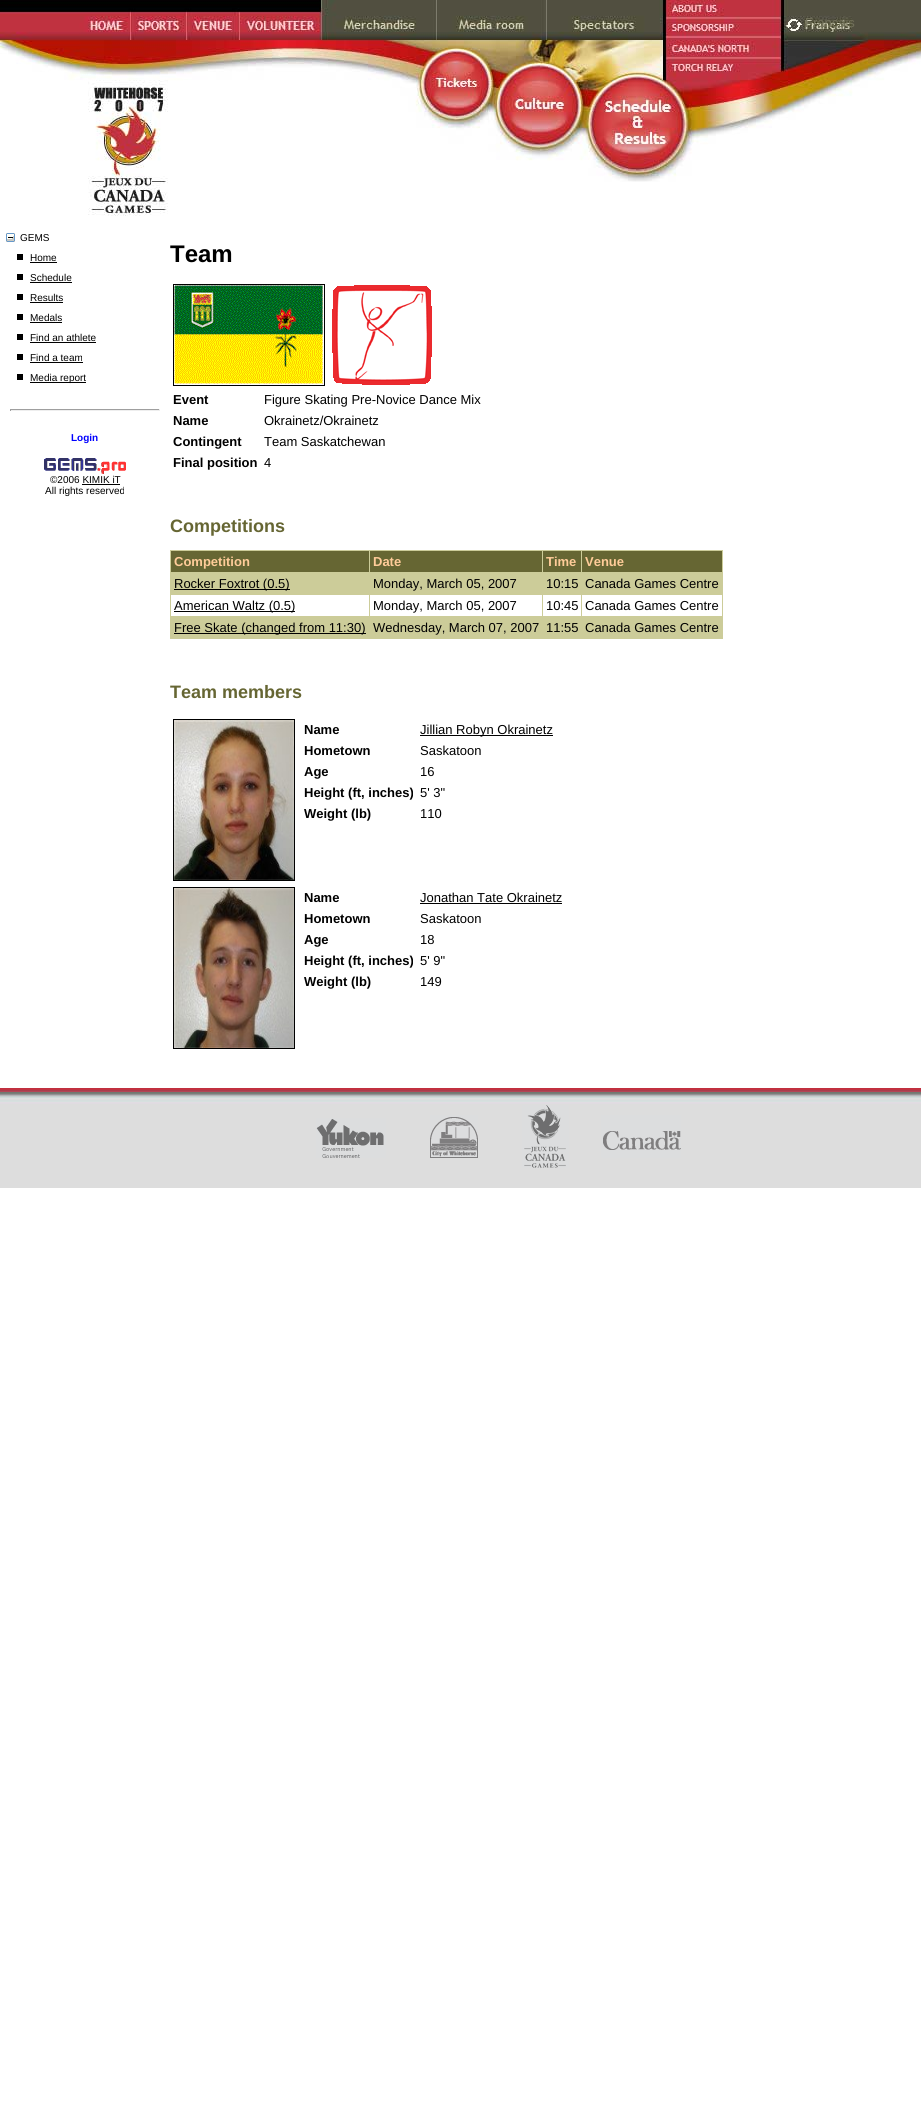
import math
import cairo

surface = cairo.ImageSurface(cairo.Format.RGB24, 921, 2128)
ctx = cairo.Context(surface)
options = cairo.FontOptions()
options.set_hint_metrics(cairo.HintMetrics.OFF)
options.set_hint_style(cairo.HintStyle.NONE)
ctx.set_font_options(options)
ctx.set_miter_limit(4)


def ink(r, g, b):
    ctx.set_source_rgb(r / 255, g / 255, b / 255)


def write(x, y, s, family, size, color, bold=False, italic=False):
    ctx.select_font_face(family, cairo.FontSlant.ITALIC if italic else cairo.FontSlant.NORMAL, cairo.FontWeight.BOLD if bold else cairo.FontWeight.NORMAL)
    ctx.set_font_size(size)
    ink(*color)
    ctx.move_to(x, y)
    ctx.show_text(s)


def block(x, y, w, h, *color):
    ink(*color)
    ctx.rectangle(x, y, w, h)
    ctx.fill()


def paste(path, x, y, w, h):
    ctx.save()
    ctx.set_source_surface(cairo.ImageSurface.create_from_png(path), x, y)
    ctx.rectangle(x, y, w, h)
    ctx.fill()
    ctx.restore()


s1 = dict(family="Liberation Sans", size=13, color=(114, 113, 90))
s2 = dict(family="Liberation Sans", size=10, color=(0, 0, 0))
s3 = dict(family="Liberation Sans", size=10, color=(0, 0, 255), bold=True)
s4 = dict(family="Liberation Sans", size=24, color=(0, 0, 0), bold=True)
s5 = dict(family="Liberation Sans", size=13, color=(0, 0, 0), bold=True)
s6 = dict(family="Liberation Sans", size=13, color=(0, 0, 0))
s7 = dict(family="Liberation Sans", size=18, color=(102, 102, 51), bold=True)
s8 = dict(family="Liberation Sans", size=13, color=(255, 204, 153), bold=True)

ink(255, 255, 255)
ctx.paint()
paste("pic1.png", 0, 0, 500, 216)
paste("pic2.png", 500, 0, 421, 182)
write(805, 27, "Français", **s1)
paste("pic3.png", 6, 233, 9, 9)
write(20, 241, "GEMS", **s2)
block(17, 254, 6, 6, 0, 0, 0)
write(30, 261, "Home", **s2)
block(30, 262, 27, 1, 0, 0, 0)
block(17, 274, 6, 6, 0, 0, 0)
write(30, 281, "Schedule", **s2)
block(30, 282, 42, 1, 0, 0, 0)
block(17, 294, 6, 6, 0, 0, 0)
write(30, 301, "Results", **s2)
block(30, 302, 33, 1, 0, 0, 0)
block(17, 314, 6, 6, 0, 0, 0)
write(30, 321, "Medals", **s2)
block(30, 322, 32, 1, 0, 0, 0)
block(17, 334, 6, 6, 0, 0, 0)
write(30, 341, "Find an athlete", **s2)
block(30, 342, 66, 1, 0, 0, 0)
block(17, 354, 6, 6, 0, 0, 0)
write(30, 361, "Find a team", **s2)
block(30, 362, 53, 1, 0, 0, 0)
block(17, 374, 6, 6, 0, 0, 0)
block(30, 382, 56, 1, 0, 0, 0)
write(30, 381, "Media report", **s2)
block(10, 409, 150, 1, 159, 159, 159)
block(159, 409, 1, 2, 238, 238, 238)
block(10, 410, 150, 1, 238, 238, 238)
block(10, 409, 1, 2, 159, 159, 159)
write(71, 441, "Login", **s3)
paste("pic4.png", 44, 458, 82, 16)
write(50, 483, "©2006 KIMIK iT", **s2)
block(82, 484, 38, 1, 0, 0, 0)
write(45, 494, "All rights reserved", **s2)
write(170, 262, "Team", **s4)
ctx.rectangle(173.5, 284.5, 151, 101)
ctx.set_line_width(1)
ctx.stroke()
paste("pic5.png", 174, 285, 149, 99)
paste("pic6.png", 332, 285, 100, 100)
write(173, 404, "Event", **s5)
write(264, 404, "Figure Skating Pre-Novice Dance Mix", **s6)
write(173, 425, "Name", **s5)
write(264, 425, "Okrainetz/Okrainetz", **s6)
write(173, 446, "Contingent", **s5)
write(264, 446, "Team Saskatchewan", **s6)
write(173, 467, "Final position", **s5)
write(264, 467, "4", **s6)
write(170, 532, "Competitions", **s7)
block(171, 551, 551, 21, 102, 102, 51)
block(581, 550, 142, 1, 204, 204, 153)
block(170, 572, 553, 1, 204, 204, 153)
block(581, 550, 1, 23, 204, 204, 153)
block(542, 550, 40, 1, 204, 204, 153)
block(542, 550, 1, 23, 204, 204, 153)
block(369, 550, 174, 1, 204, 204, 153)
block(369, 550, 1, 23, 204, 204, 153)
block(170, 550, 200, 1, 204, 204, 153)
block(170, 616, 553, 1, 204, 204, 153)
block(170, 616, 1, 23, 204, 204, 153)
block(170, 594, 1, 23, 204, 204, 153)
block(170, 572, 1, 23, 204, 204, 153)
block(170, 550, 1, 23, 204, 204, 153)
write(174, 566, "Competition", **s8)
write(373, 566, "Date", **s8)
write(546, 566, "Time", **s8)
block(722, 616, 1, 23, 204, 204, 153)
block(722, 594, 1, 23, 204, 204, 153)
block(722, 572, 1, 23, 204, 204, 153)
block(722, 550, 1, 23, 204, 204, 153)
write(585, 566, "Venue", **s8)
block(171, 573, 551, 22, 204, 204, 153)
block(174, 589, 116, 1, 0, 0, 0)
write(174, 588, "Rocker Foxtrot (0.5)", **s6)
write(373, 588, "Monday, March 05, 2007", **s6)
write(546, 588, "10:15", **s6)
write(585, 588, "Canada Games Centre", **s6)
block(174, 611, 121, 1, 0, 0, 0)
write(174, 610, "American Waltz (0.5)", **s6)
block(369, 594, 1, 23, 204, 204, 153)
write(373, 610, "Monday, March 05, 2007", **s6)
block(542, 594, 1, 23, 204, 204, 153)
write(546, 610, "10:45", **s6)
block(581, 594, 1, 23, 204, 204, 153)
write(585, 610, "Canada Games Centre", **s6)
block(171, 617, 551, 22, 204, 204, 153)
block(174, 633, 192, 1, 0, 0, 0)
write(174, 632, "Free Skate (changed from 11:30)", **s6)
write(373, 632, "Wednesday, March 07, 2007", **s6)
write(546, 632, "11:55", **s6)
write(585, 632, "Canada Games Centre", **s6)
write(170, 698, "Team members", **s7)
ctx.rectangle(173.5, 719.5, 121, 161)
ink(0, 0, 0)
ctx.stroke()
paste("pic7.png", 174, 720, 120, 160)
write(304, 734, "Name", **s5)
block(420, 735, 133, 1, 0, 0, 0)
write(420, 734, "Jillian Robyn Okrainetz", **s6)
write(304, 755, "Hometown", **s5)
write(420, 755, "Saskatoon", **s6)
write(304, 776, "Age", **s5)
write(420, 776, "16", **s6)
write(304, 797, "Height (ft, inches)", **s5)
write(420, 797, "5' 3\"", **s6)
write(304, 818, "Weight (lb)", **s5)
write(420, 818, "110", **s6)
ctx.rectangle(173.5, 887.5, 121, 161)
ctx.stroke()
paste("pic8.png", 174, 888, 120, 160)
write(304, 902, "Name", **s5)
write(420, 902, "Jonathan Tate Okrainetz", **s6)
block(420, 903, 142, 1, 0, 0, 0)
write(304, 923, "Hometown", **s5)
write(420, 923, "Saskatoon", **s6)
write(304, 944, "Age", **s5)
write(420, 944, "18", **s6)
write(304, 965, "Height (ft, inches)", **s5)
write(420, 965, "5' 9\"", **s6)
write(304, 986, "Weight (lb)", **s5)
write(420, 986, "149", **s6)
paste("pic9.png", 0, 1088, 921, 100)
paste("pic10.png", 316, 1105, 365, 63)
surface.write_to_png("screenshot.png")
